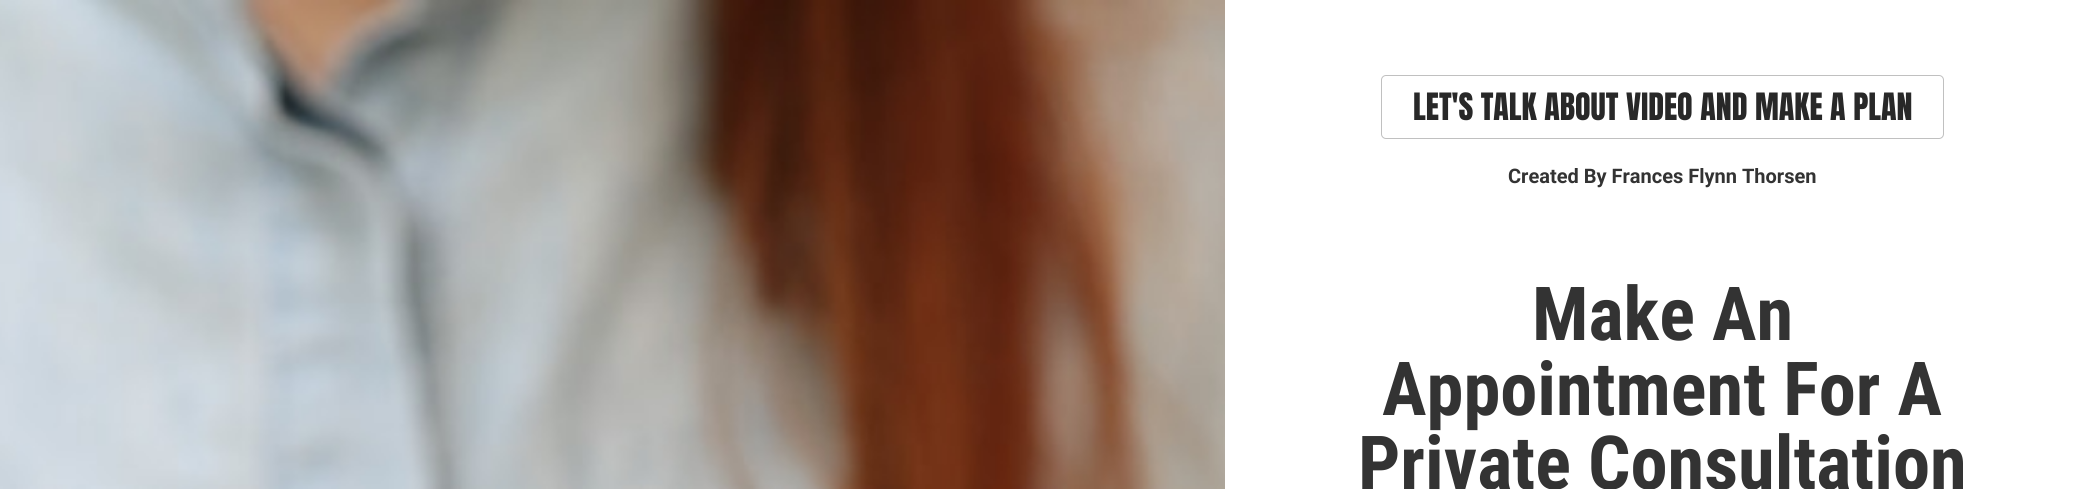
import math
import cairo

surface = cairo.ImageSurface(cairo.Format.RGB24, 2100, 489)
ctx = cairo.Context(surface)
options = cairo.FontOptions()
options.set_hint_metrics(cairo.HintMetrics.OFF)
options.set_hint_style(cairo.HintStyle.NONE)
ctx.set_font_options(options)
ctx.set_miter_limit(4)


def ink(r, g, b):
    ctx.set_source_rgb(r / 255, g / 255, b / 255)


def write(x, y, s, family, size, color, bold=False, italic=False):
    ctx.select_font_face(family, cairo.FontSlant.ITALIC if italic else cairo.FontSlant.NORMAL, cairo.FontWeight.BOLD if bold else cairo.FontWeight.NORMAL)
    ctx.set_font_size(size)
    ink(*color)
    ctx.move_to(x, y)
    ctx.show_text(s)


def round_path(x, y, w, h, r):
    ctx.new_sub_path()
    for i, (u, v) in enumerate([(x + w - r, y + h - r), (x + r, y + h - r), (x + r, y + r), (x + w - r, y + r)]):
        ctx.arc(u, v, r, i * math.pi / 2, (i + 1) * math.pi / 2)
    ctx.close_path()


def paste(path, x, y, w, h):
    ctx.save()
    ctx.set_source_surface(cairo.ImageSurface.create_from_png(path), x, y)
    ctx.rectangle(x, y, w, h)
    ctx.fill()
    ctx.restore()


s1 = dict(family="Anton", size=32, color=(40, 40, 40))
s2 = dict(family="Roboto", size=20, color=(51, 51, 51), bold=True)
s3 = dict(family="Roboto Condensed", size=74.5, color=(51, 51, 51), bold=True)

ink(255, 255, 255)
ctx.paint()
paste("pic1.png", 0, 0, 1225, 489)
round_path(1381.5, 75.5, 562, 63, 4.5)
ink(192, 192, 192)
ctx.set_line_width(1)
ctx.stroke()
write(1413, 120, "LET'S TALK ABOUT VIDEO AND MAKE A PLAN", **s1)
write(1508, 183, "Created By Frances Flynn Thorsen", **s2)
write(1532, 340, "Make An", **s3)
write(1382, 415, "Appointment For A", **s3)
write(1358, 489, "Private Consultation", **s3)
surface.write_to_png("screenshot.png")
